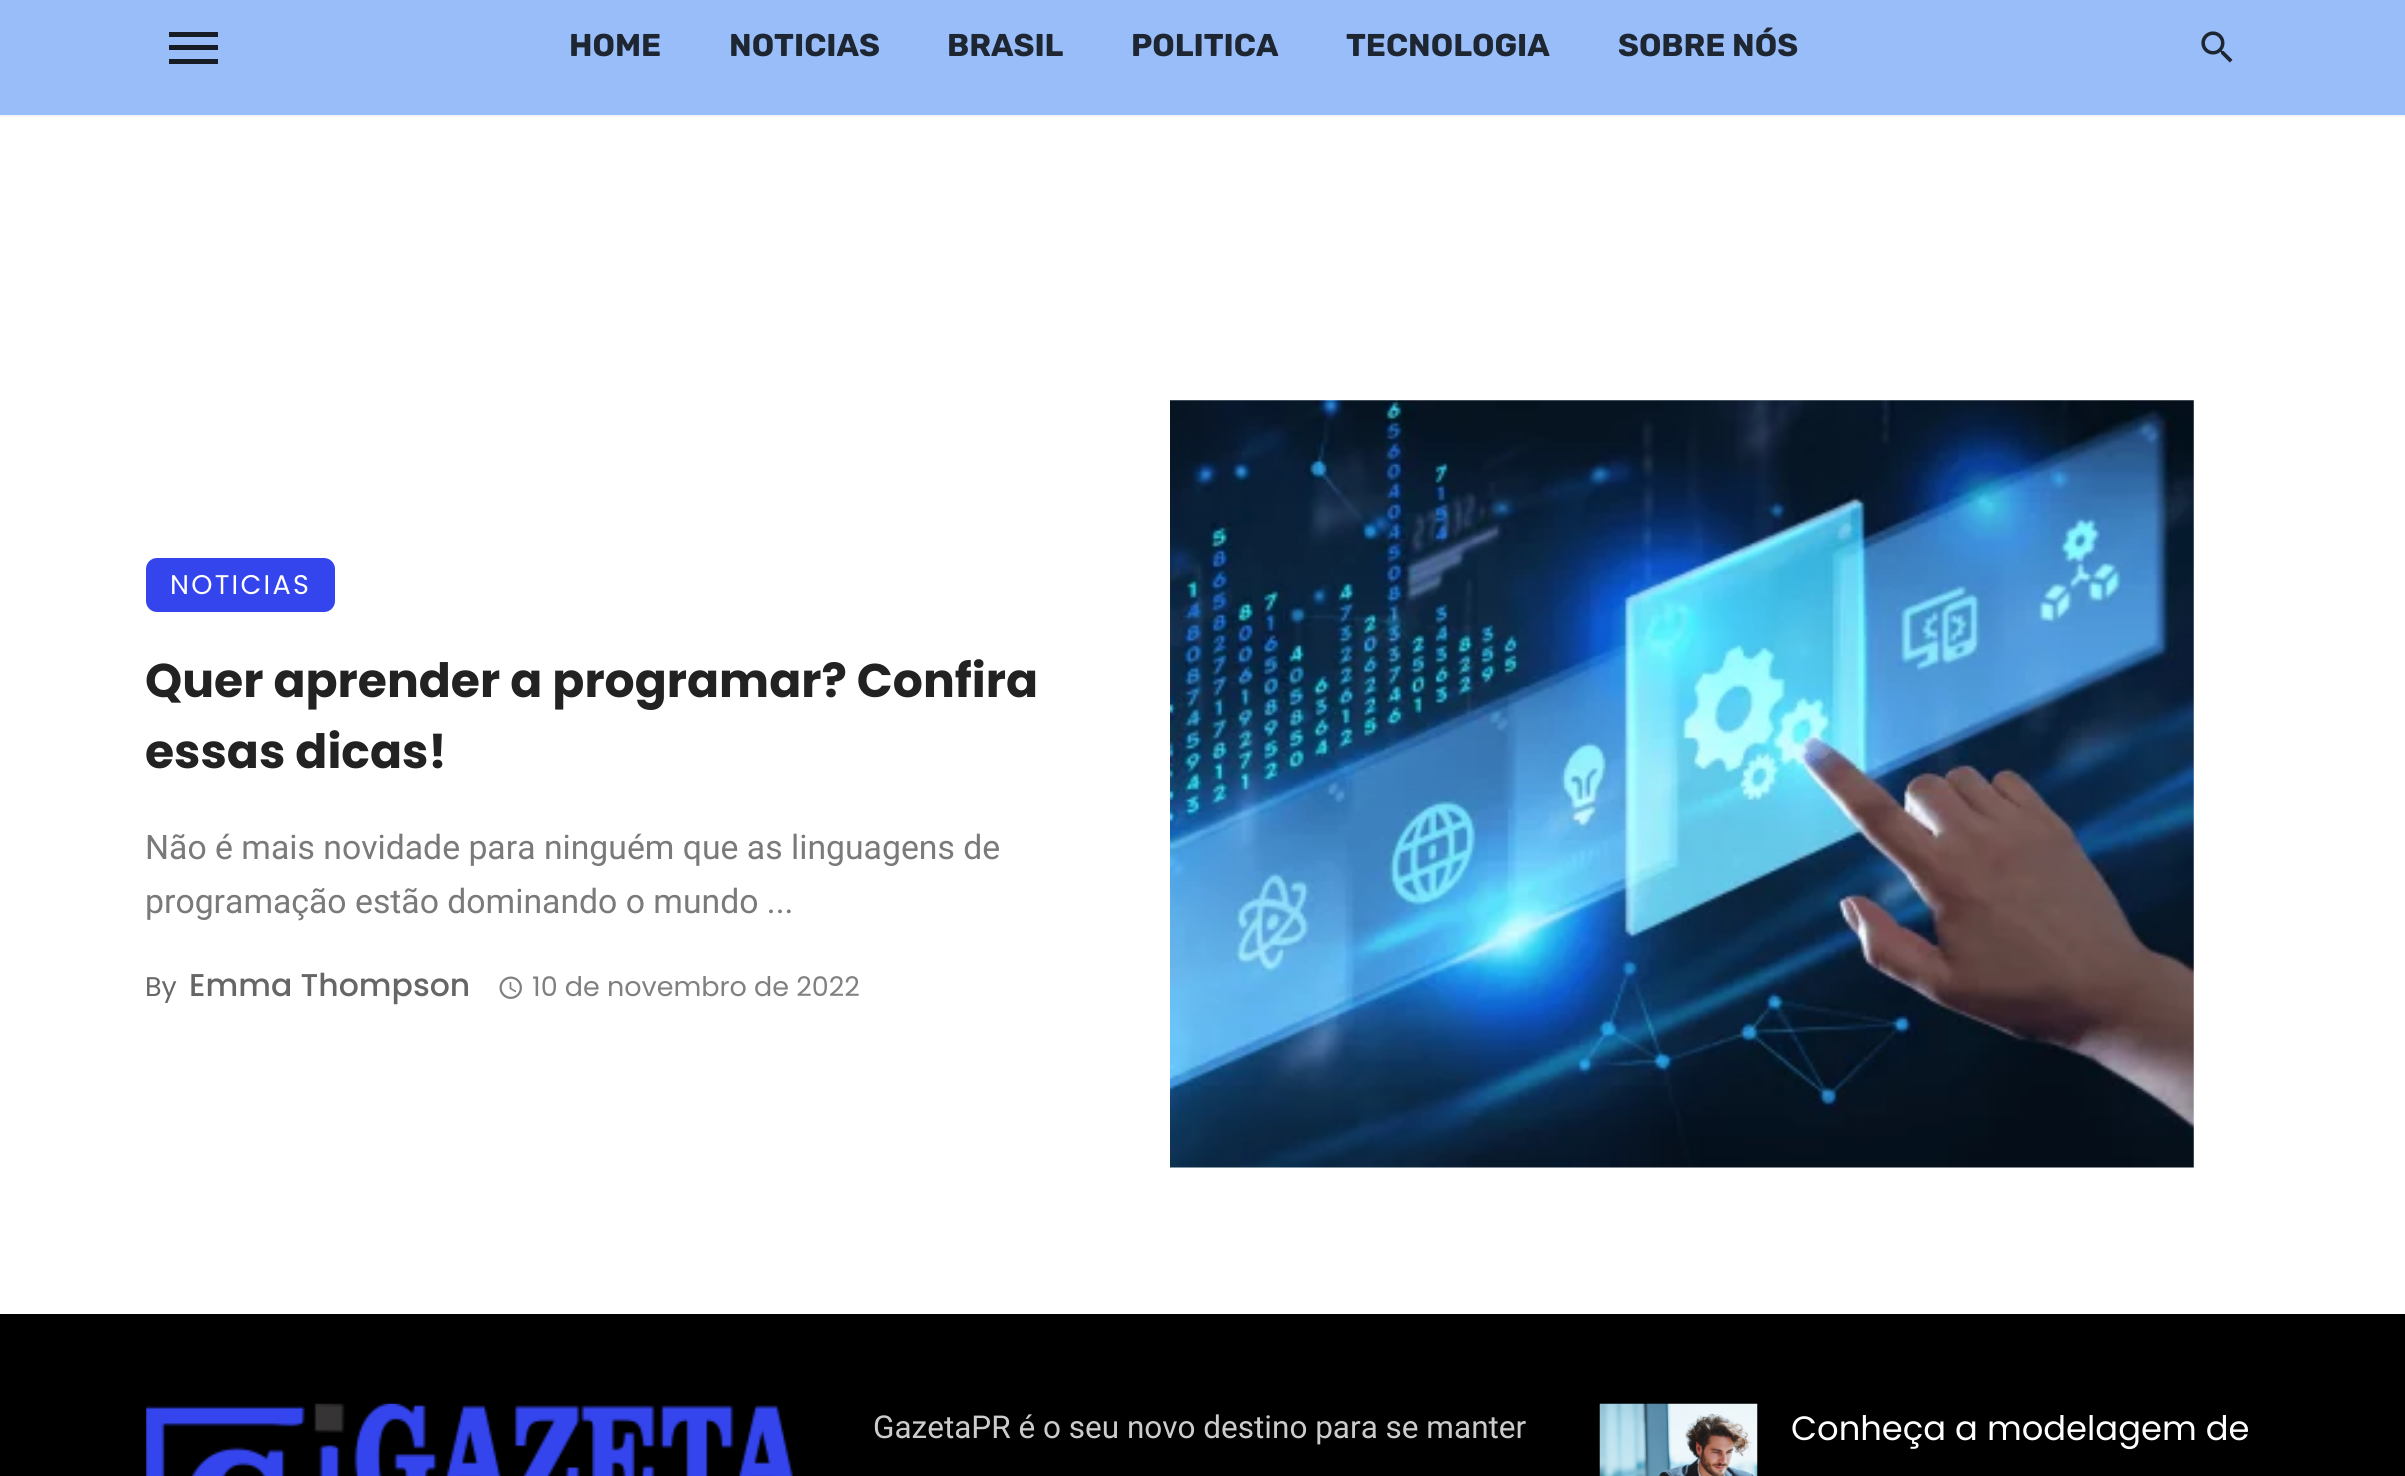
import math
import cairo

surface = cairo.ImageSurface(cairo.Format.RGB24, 2405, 1476)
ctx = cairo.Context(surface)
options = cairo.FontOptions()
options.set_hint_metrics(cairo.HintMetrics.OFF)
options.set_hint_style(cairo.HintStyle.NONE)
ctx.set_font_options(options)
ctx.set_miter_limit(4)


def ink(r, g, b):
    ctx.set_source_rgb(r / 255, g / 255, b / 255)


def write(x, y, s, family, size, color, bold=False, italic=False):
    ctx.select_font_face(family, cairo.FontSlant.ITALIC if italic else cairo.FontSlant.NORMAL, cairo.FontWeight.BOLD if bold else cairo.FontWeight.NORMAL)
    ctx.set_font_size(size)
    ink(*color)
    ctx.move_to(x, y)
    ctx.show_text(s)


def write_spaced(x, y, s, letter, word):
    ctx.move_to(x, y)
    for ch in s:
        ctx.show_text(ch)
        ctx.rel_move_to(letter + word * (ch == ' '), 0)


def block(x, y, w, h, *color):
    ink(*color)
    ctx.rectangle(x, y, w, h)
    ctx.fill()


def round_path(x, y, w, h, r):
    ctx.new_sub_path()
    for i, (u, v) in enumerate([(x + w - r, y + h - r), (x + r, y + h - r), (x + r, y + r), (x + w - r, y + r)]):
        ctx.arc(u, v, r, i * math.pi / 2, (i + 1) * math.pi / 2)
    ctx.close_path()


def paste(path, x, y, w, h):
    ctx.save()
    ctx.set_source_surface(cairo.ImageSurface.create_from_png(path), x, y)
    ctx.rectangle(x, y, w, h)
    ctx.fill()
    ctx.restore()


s1 = dict(family="Rubik", size=31.5, color=(30, 38, 50), bold=True)
s2 = dict(family="Poppins", size=47.25, color=(34, 34, 34), bold=True)
s3 = dict(family="Roboto", size=33.75, color=(122, 122, 122))
s4 = dict(family="Poppins", size=27, color=(102, 102, 102))
s5 = dict(family="Poppins Medium", size=31.5, color=(102, 102, 102))
s6 = dict(family="Poppins", size=27, color=(128, 128, 128))
s7 = dict(family="Roboto", size=31.5, color=(204, 204, 204))
s8 = dict(family="Poppins", size=33.75, color=(255, 255, 255))

ink(255, 255, 255)
ctx.paint()
block(0, 115, 2405, 2, 245, 245, 245)
block(0, 0, 2405, 115, 152, 189, 249)
block(169, 45, 49, 5, 23, 28, 37)
block(169, 32, 49, 5, 23, 28, 37)
block(169, 59, 49, 5, 23, 28, 37)
write(569, 56, "HOME", **s1)
write(729, 56, "NOTICIAS", **s1)
write(947, 56, "BRASIL", **s1)
write(1131, 56, "POLITICA", **s1)
write(1346, 56, "TECNOLOGIA", **s1)
write(1618, 56, "SOBRE NÓS", **s1)
paste("pic1.png", 2201, 31, 32, 32)
ink(53, 69, 238)
round_path(146, 558, 189, 54, 11)
ctx.fill()
ctx.select_font_face("Poppins")
ctx.set_font_size(27)
ink(255, 255, 255)
write_spaced(170, 594, "NOTICIAS", 2.25, 0)
write(145, 697, "Quer aprender a programar? Confira", **s2)
write(145, 768, "essas dicas!", **s2)
write(145, 859, "Não é mais novidade para ninguém que as linguagens de", **s3)
write(145, 913, "programação estão dominando o mundo ...", **s3)
write(145, 996, "By", **s4)
write(189, 996, "Emma Thompson", **s5)
paste("pic2.png", 499, 976, 23, 23)
write(532, 996, "10 de novembro de 2022", **s6)
paste("pic3.png", 1170, 400, 1024, 768)
block(0, 1314, 2405, 162, 0, 0, 0)
paste("pic4.png", 146, 1403, 647, 73)
write(873, 1438, "GazetaPR é o seu novo destino para se manter", **s7)
paste("pic5.png", 1599, 1403, 159, 73)
write(1791, 1440, "Conheça a modelagem de", **s8)
surface.write_to_png("screenshot.png")
